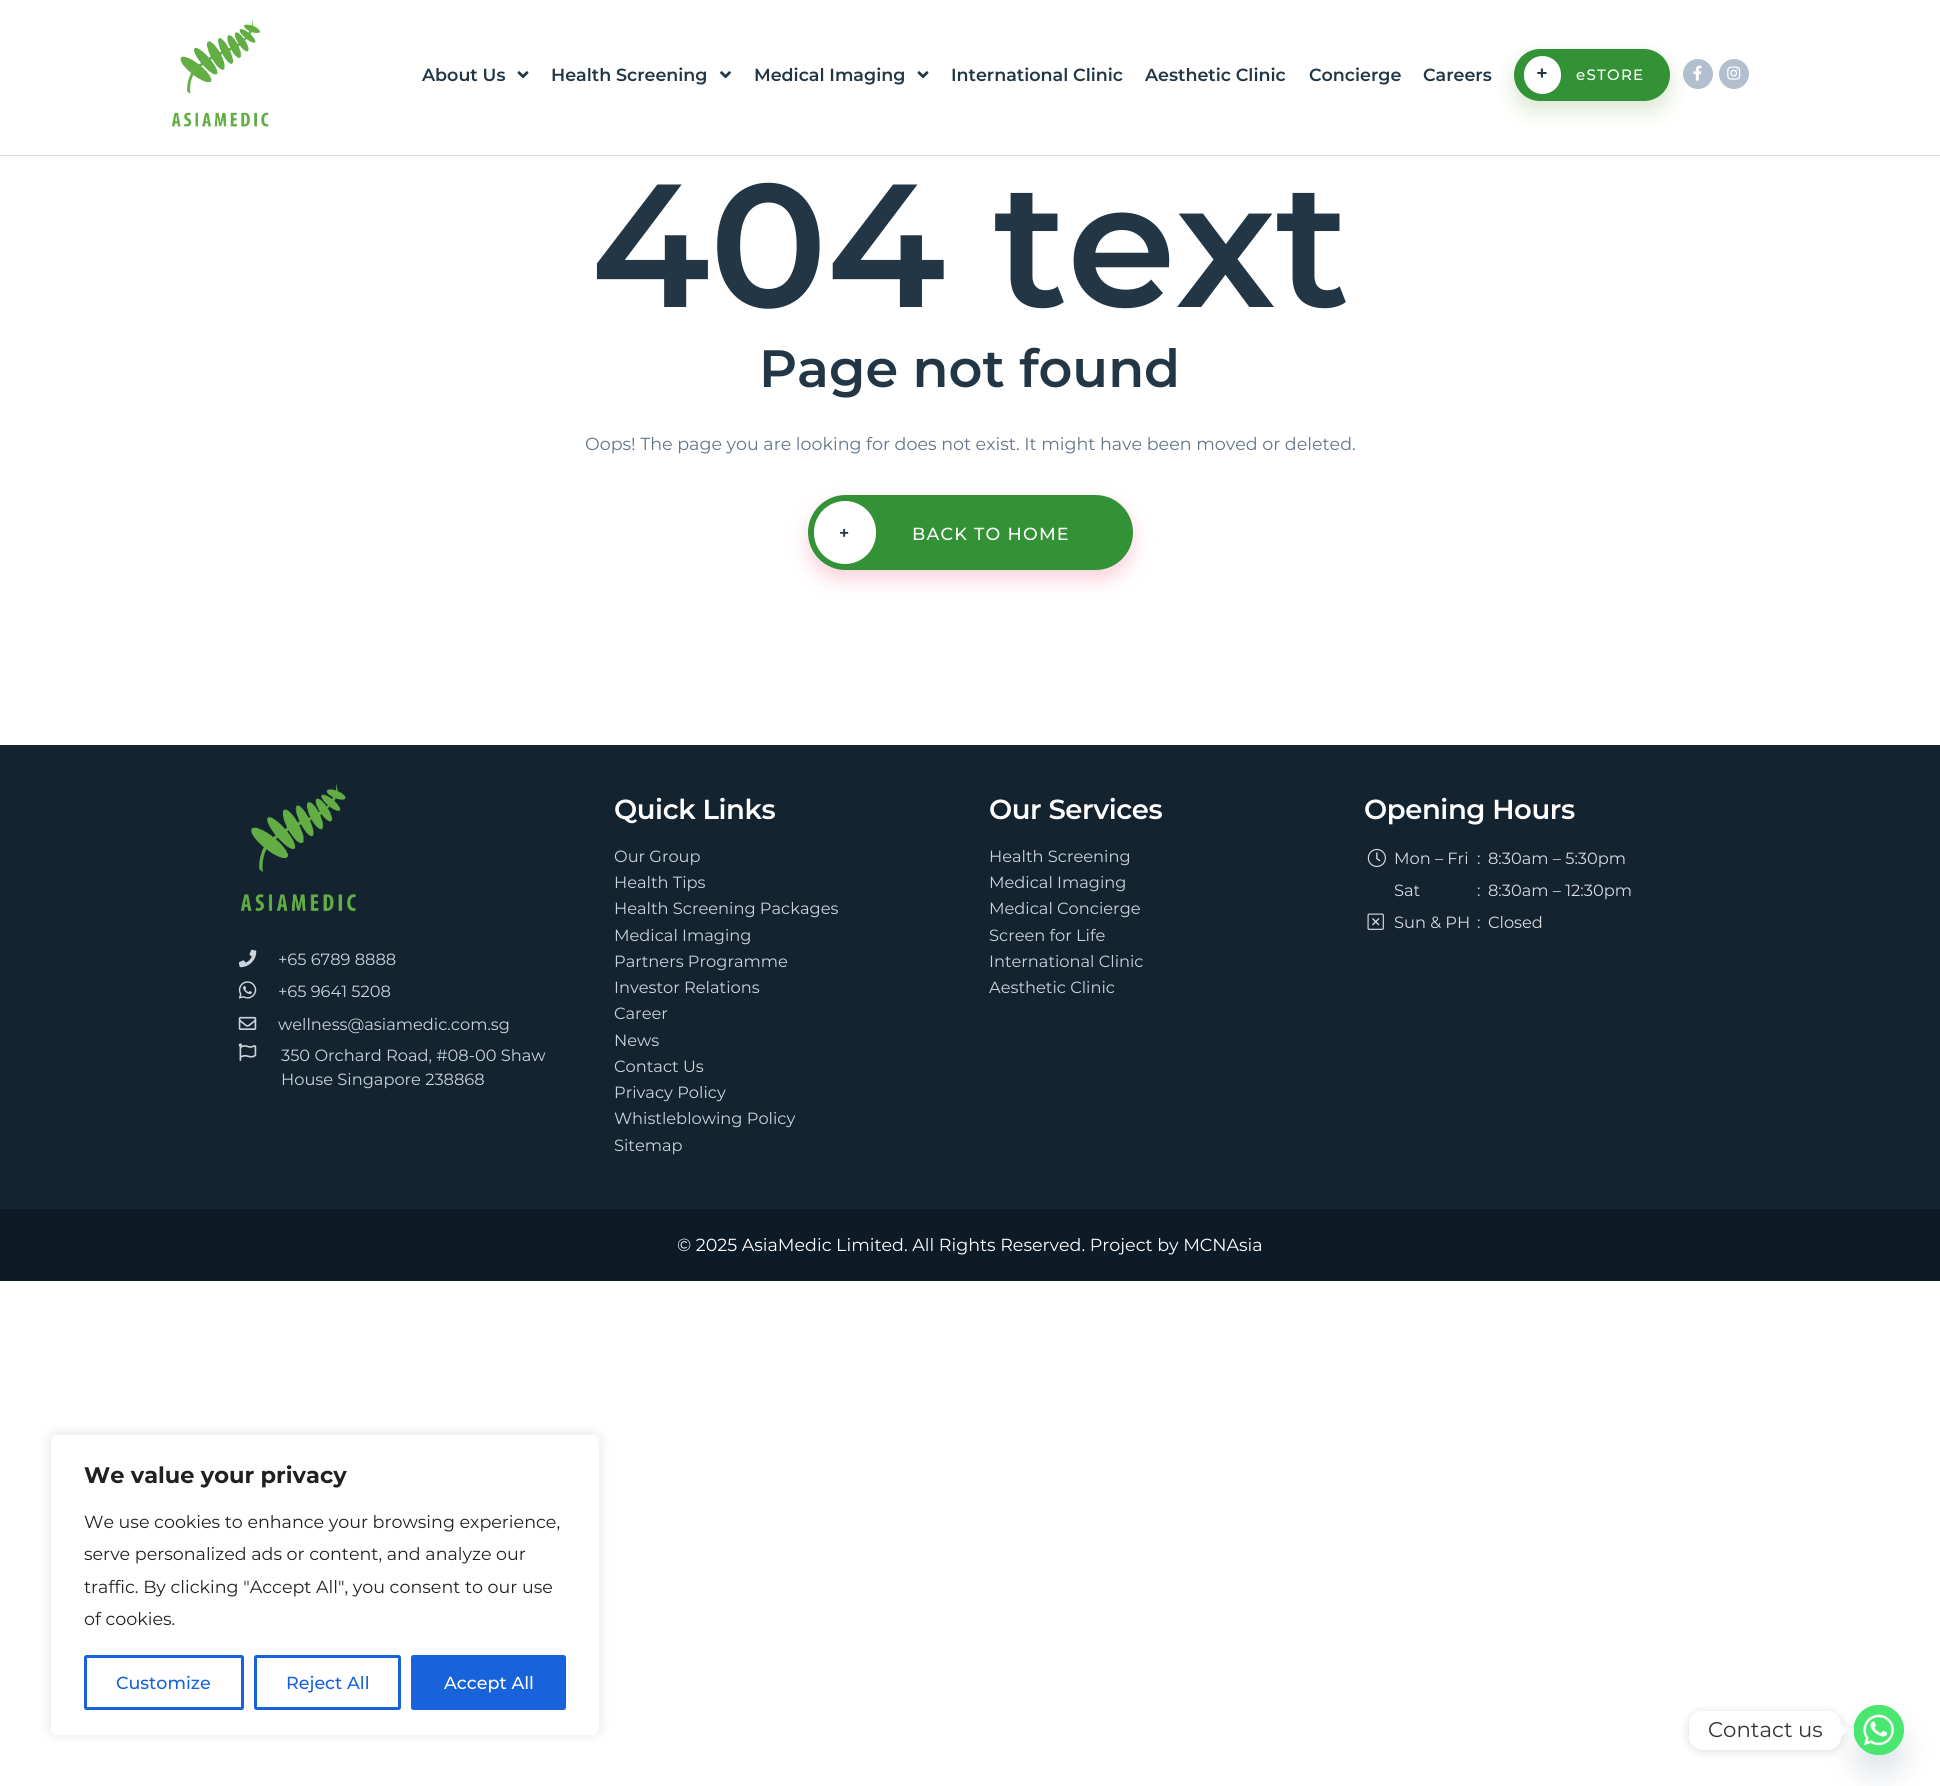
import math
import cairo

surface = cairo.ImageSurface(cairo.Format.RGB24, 1940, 1786)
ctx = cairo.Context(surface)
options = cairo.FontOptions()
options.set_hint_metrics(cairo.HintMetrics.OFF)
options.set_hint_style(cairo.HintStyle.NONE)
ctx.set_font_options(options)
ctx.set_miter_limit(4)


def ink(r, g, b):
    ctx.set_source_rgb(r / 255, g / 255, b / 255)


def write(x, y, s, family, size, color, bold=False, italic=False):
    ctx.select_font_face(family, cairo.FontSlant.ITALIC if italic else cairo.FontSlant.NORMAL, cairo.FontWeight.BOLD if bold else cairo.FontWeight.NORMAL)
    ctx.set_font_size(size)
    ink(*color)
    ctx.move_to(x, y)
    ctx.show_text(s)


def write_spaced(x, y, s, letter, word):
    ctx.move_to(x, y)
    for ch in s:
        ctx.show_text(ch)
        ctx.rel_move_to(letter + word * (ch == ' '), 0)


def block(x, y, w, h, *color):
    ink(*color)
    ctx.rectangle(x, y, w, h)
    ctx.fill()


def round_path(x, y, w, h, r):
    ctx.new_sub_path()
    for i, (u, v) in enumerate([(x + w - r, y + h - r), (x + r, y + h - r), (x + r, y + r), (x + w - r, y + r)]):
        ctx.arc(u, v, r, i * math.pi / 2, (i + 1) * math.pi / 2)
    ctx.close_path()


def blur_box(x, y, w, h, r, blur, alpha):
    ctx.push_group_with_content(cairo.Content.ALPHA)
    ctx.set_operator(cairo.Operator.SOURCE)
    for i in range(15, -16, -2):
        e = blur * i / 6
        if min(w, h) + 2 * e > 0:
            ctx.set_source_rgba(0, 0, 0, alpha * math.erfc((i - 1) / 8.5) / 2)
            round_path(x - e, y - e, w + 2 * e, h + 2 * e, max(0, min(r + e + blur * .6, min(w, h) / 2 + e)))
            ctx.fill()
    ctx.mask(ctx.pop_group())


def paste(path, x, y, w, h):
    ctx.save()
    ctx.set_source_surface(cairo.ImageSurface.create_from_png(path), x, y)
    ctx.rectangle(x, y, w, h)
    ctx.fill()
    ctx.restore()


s1 = dict(family="Montserrat SemiBold", size=17.5, color=(34, 54, 69))
s2 = dict(family="Montserrat SemiBold", size=52.5, color=(34, 54, 69))
s3 = dict(family="Montserrat", size=17.5, color=(100, 117, 137))
s4 = dict(family="Montserrat", size=16.25, color=(201, 212, 219))
s5 = dict(family="Montserrat", size=16.25, color=(216, 218, 222))
s6 = dict(family="Montserrat", size=17.5, color=(255, 255, 255))
s7 = dict(family="Montserrat", size=22.5, color=(33, 33, 33), bold=True)
s8 = dict(family="Montserrat", size=17.5, color=(33, 33, 33))
s9 = dict(family="Montserrat Medium", size=17.5, color=(24, 99, 220))
s10 = dict(family="Montserrat Medium", size=17.5, color=(255, 255, 255))
s11 = dict(family="Montserrat", size=21.25, color=(51, 51, 51))

ink(255, 255, 255)
ctx.paint()
block(0, 155, 1940, 1, 224, 224, 224)
paste("pic1.png", 172, 19, 97, 108)
write(422, 81, "About Us", **s1)
paste("pic2.png", 517, 71, 12, 8)
write(551, 81, "Health Screening", **s1)
paste("pic3.png", 720, 71, 11, 8)
write(754, 81, "Medical Imaging", **s1)
paste("pic2.png", 917, 71, 12, 8)
write(951, 81, "International Clinic", **s1)
write(1145, 81, "Aesthetic Clinic", **s1)
write(1309, 81, "Concierge", **s1)
write(1423, 81, "Careers", **s1)
ink(143, 181, 105)
blur_box(1514, 59, 156, 52, 26, 10, 0.3)
ink(50, 146, 53)
round_path(1514, 49, 156, 52, 26)
ctx.fill()
ink(255, 255, 255)
round_path(1524, 56, 37, 38, 18.5)
ctx.fill()
ctx.set_font_size(20)
ink(34, 54, 69)
write_spaced(1536, 80, "+", 1.25, 0)
ctx.select_font_face("Montserrat Medium")
ctx.set_font_size(15)
ink(255, 255, 255)
write_spaced(1576, 80, "eSTORE", 1.25, 0)
ink(178, 191, 207)
ctx.new_path()
ctx.arc(1698, 74, 15, 0, 2 * math.pi)
ctx.fill()
paste("pic4.png", 1693, 65, 9, 16)
ctx.arc(1734, 74, 15, 0, 2 * math.pi)
ctx.fill()
paste("pic5.png", 1727, 66, 14, 14)
ctx.select_font_face("Montserrat SemiBold")
ctx.set_font_size(175)
ink(34, 54, 69)
write_spaced(591, 307, "404 text", -0.4, 0)
write(759, 387, "Page not found", **s2)
write(585, 450, "Oops! The page you are looking for does not exist. It might have been moved or deleted.", **s3)
ink(225, 36, 84)
blur_box(808, 505, 325, 75, 37.5, 10, 0.2)
ink(50, 146, 53)
round_path(808, 495, 325, 75, 37.5)
ctx.fill()
ink(255, 255, 255)
round_path(814, 501, 62, 63, 31)
ctx.fill()
ctx.select_font_face("Montserrat SemiBold")
ink(34, 54, 69)
write_spaced(839, 539, "+", 1.25, 0)
ctx.select_font_face("Montserrat Medium")
ink(255, 255, 255)
write_spaced(912, 540, "BACK TO HOME", 1.25, 0)
block(0, 745, 1940, 464, 19, 35, 47)
ctx.select_font_face("Montserrat SemiBold")
ctx.set_font_size(27.5)
ink(255, 255, 255)
write_spaced(614, 819, "Quick Links", -0.4, 0)
write(614, 862, "Our Group", **s4)
write(614, 888, "Health Tips", **s4)
write(614, 914, "Health Screening Packages", **s4)
write(614, 941, "Medical Imaging", **s4)
write(614, 967, "Partners Programme", **s4)
write(614, 993, "Investor Relations", **s4)
write(614, 1019, "Career", **s4)
write(614, 1046, "News", **s4)
write(614, 1072, "Contact Us", **s4)
write(614, 1098, "Privacy Policy", **s4)
write(614, 1124, "Whistleblowing Policy", **s4)
write(614, 1151, "Sitemap", **s4)
ctx.select_font_face("Montserrat SemiBold")
ctx.set_font_size(27.5)
ink(255, 255, 255)
write_spaced(989, 819, "Our Services", -0.4, 0)
write(989, 862, "Health Screening", **s4)
write(989, 888, "Medical Imaging", **s4)
write(989, 914, "Medical Concierge", **s4)
write(989, 941, "Screen for Life", **s4)
write(989, 967, "International Clinic", **s4)
write(989, 993, "Aesthetic Clinic", **s4)
ctx.select_font_face("Montserrat SemiBold")
ctx.set_font_size(27.5)
ink(255, 255, 255)
write_spaced(1364, 819, "Opening Hours", -0.4, 0)
paste("pic6.png", 1367, 848, 19, 19)
write(1394, 864, "Mon – Fri", **s5)
write(1477, 864, ":", **s5)
write(1488, 864, "8:30am – 5:30pm", **s5)
write(1394, 896, "Sat", **s5)
write(1477, 896, ":", **s5)
write(1488, 896, "8:30am – 12:30pm", **s5)
paste("pic7.png", 1367, 913, 17, 17)
write(1394, 928, "Sun & PH", **s5)
write(1477, 928, ":", **s5)
write(1488, 928, "Closed", **s5)
paste("pic8.png", 240, 783, 116, 129)
paste("pic9.png", 238, 949, 19, 19)
write(278, 965, "+65 6789 8888", **s4)
paste("pic10.png", 238, 981, 19, 18)
write(278, 997, "+65 9641 5208", **s4)
paste("pic11.png", 238, 1016, 19, 14)
write(278, 1030, "wellness@asiamedic.com.sg", **s4)
paste("pic12.png", 238, 1043, 19, 18)
write(281, 1061, "350 Orchard Road, #08-00 Shaw", **s4)
write(281, 1085, "House Singapore 238868", **s4)
block(0, 1209, 1940, 72, 13, 27, 38)
write(677, 1251, "© 2025 AsiaMedic Limited. All Rights Reserved. Project by MCNAsia", **s6)
ctx.save()
ctx.set_fill_rule(cairo.FillRule.EVEN_ODD)
ctx.new_path()
ctx.move_to(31, 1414)
ctx.line_to(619, 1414)
ctx.line_to(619, 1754)
ctx.line_to(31, 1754)
ctx.close_path()
ctx.move_to(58, 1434)
ctx.line_to(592, 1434)
ctx.curve_to(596.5, 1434, 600, 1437.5, 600, 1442)
ctx.line_to(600, 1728)
ctx.curve_to(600, 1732.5, 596.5, 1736, 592, 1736)
ctx.line_to(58, 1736)
ctx.curve_to(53.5, 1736, 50, 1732.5, 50, 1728)
ctx.line_to(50, 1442)
ctx.curve_to(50, 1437.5, 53.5, 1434, 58, 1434)
ctx.close_path()
ctx.clip()
ink(172, 171, 171)
blur_box(50, 1433, 550, 302, 8, 6, 0.3)
ctx.restore()
round_path(50.5, 1434.5, 549, 301, 7.5)
ink(244, 244, 244)
ctx.set_line_width(1)
ctx.stroke()
write(84, 1483, "We value your privacy", **s7)
write(84, 1528, "We use cookies to enhance your browsing experience,", **s8)
write(84, 1560, "serve personalized ads or content, and analyze our", **s8)
write(84, 1593, "traffic. By clicking \"Accept All\", you consent to our use", **s8)
write(84, 1625, "of cookies.", **s8)
round_path(85.5, 1656.5, 157, 52, 1)
ink(24, 99, 220)
ctx.set_line_width(3)
ctx.stroke()
write(116, 1689, "Customize", **s9)
round_path(255.5, 1656.5, 144, 52, 1)
ctx.stroke()
write(286, 1689, "Reject All", **s9)
round_path(412.5, 1656.5, 152, 52, 1)
ctx.fill_preserve()
ctx.stroke()
write(444, 1689, "Accept All", **s10)
ink(73, 104, 126)
blur_box(1854, 1725, 50, 50, 25, 15, 0.16)
ink(73, 230, 112)
ctx.arc(1879, 1730, 25, 0, 2 * math.pi)
ctx.fill()
paste("pic13.png", 1854, 1705, 50, 50)
ink(0, 0, 0)
blur_box(1689, 1713, 152, 38, 13, 5, 0.15)
ink(255, 255, 255)
round_path(1689, 1711, 152, 39, 13)
ctx.fill()
write(1708, 1737, "Contact us", **s11)
ink(255, 255, 255)
ctx.new_path()
ctx.move_to(1841, 1737)
ctx.line_to(1841, 1724.5)
ctx.line_to(1847.5, 1730.5)
ctx.close_path()
ctx.fill()
surface.write_to_png("screenshot.png")
